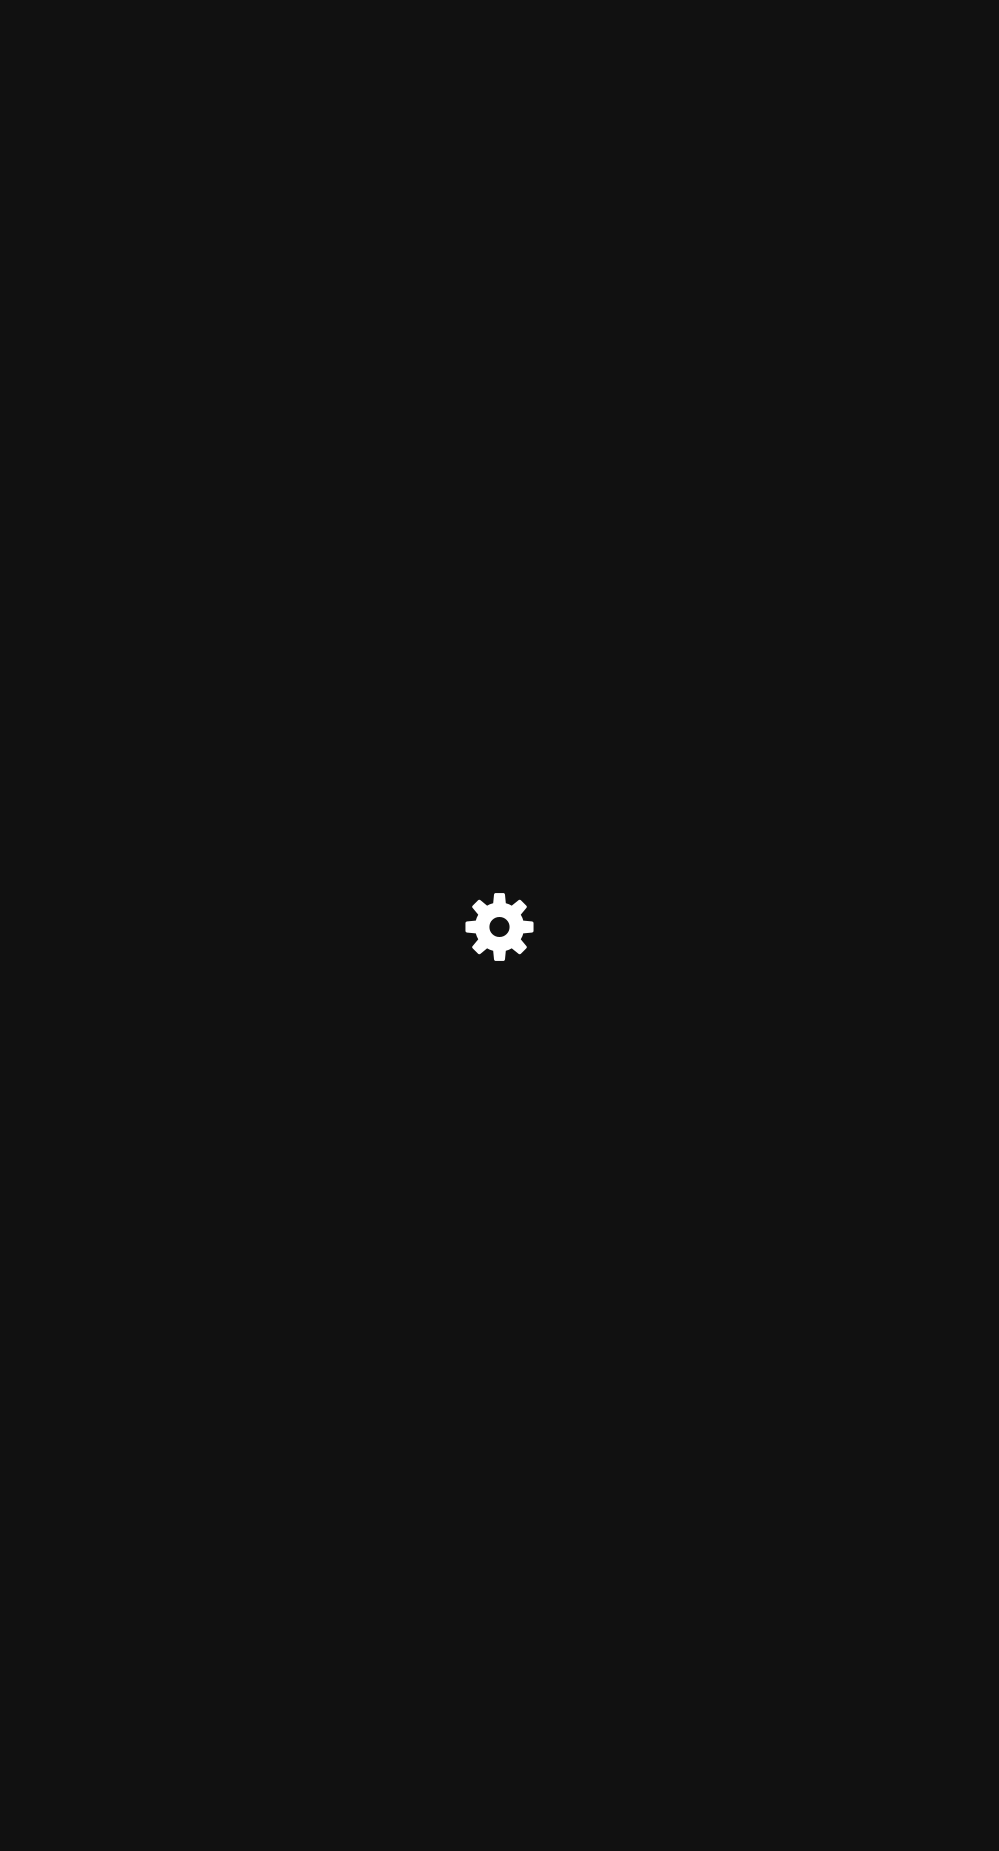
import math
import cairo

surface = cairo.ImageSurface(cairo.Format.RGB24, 999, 1851)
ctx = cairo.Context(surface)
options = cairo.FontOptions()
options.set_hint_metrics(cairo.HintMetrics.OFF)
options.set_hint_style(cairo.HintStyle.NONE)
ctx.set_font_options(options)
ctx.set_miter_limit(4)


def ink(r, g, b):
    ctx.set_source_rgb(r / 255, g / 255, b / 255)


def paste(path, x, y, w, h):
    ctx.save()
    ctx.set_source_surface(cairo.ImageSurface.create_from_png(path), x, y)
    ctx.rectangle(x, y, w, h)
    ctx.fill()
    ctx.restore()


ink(17, 17, 17)
ctx.paint()
paste("pic1.png", 465, 893, 69, 68)
surface.write_to_png("screenshot.png")
